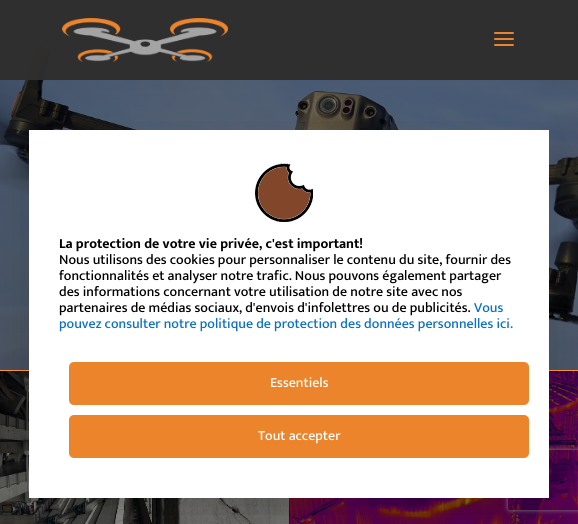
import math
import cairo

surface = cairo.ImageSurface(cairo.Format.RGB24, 578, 524)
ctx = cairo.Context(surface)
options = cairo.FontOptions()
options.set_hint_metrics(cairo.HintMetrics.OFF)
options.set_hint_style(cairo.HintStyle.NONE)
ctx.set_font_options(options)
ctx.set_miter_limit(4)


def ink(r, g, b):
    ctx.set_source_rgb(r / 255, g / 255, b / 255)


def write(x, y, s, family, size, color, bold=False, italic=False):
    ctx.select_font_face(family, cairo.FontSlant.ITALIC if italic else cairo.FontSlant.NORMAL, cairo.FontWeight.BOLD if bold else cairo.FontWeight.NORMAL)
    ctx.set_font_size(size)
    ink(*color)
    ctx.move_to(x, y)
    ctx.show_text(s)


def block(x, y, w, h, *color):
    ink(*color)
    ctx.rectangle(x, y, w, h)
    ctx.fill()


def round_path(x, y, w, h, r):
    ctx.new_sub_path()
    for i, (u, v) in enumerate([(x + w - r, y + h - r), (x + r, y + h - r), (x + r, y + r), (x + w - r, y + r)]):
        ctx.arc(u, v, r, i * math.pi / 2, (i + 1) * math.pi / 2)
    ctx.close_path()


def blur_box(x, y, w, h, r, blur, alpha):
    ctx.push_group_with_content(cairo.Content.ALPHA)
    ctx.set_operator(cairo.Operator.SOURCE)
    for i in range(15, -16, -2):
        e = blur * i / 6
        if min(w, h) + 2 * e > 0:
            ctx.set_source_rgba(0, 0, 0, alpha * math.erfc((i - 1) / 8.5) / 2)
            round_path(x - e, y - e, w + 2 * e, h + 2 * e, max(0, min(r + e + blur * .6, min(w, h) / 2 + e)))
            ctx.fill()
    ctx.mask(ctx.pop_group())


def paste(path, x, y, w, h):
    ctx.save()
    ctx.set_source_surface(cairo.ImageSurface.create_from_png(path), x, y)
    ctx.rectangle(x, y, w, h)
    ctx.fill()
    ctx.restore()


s1 = dict(family="Mukta", size=14, color=(0, 0, 0), bold=True)
s2 = dict(family="Mukta Medium", size=14, color=(0, 0, 0))
s3 = dict(family="Mukta Medium", size=14, color=(12, 113, 195))
s4 = dict(family="Mukta Medium", size=14, color=(255, 255, 255))

ink(255, 255, 255)
ctx.paint()
paste("pic1.png", 0, 0, 578, 370)
block(0, 370, 578, 1, 255, 153, 51)
paste("pic2.png", 0, 371, 289, 153)
paste("pic3.png", 289, 371, 289, 153)
ctx.set_source_rgba(0.184, 0.18, 0.18, 0.98)
ctx.rectangle(0, 0, 578, 80)
ctx.fill()
paste("pic4.png", 62, 18, 166, 44)
paste("pic5.png", 494, 32, 20, 14)
ink(0, 0, 0)
blur_box(41, 167, 496, 344, 0, 25, 0.25)
ctx.save()
ctx.set_fill_rule(cairo.FillRule.EVEN_ODD)
ctx.new_path()
ctx.move_to(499, 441)
ctx.line_to(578, 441)
ctx.line_to(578, 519)
ctx.line_to(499, 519)
ctx.close_path()
ctx.move_to(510, 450)
ctx.line_to(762, 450)
ctx.curve_to(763, 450, 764, 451, 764, 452)
ctx.line_to(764, 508)
ctx.curve_to(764, 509, 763, 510, 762, 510)
ctx.line_to(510, 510)
ctx.curve_to(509, 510, 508, 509, 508, 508)
ctx.line_to(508, 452)
ctx.curve_to(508, 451, 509, 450, 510, 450)
ctx.close_path()
ctx.clip()
ink(128, 128, 128)
blur_box(508, 450, 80, 60, 2, 2.5, 1)
ctx.restore()
block(29, 130, 520, 368, 255, 255, 255)
paste("pic6.png", 255, 163, 58, 59)
write(59, 248, "La protection de votre vie privée, c'est important!", **s1)
write(59, 264, "Nous utilisons des cookies pour personnaliser le contenu du site, fournir des", **s2)
write(59, 280, "fonctionnalités et analyser notre trafic. Nous pouvons également partager", **s2)
write(59, 296, "des informations concernant votre utilisation de notre site avec nos", **s2)
write(59, 312, "partenaires de médias sociaux, d'envois d'infolettres ou de publicités.", **s2)
write(474, 312, "Vous", **s3)
write(59, 328, "pouvez consulter notre politique de protection des données personnelles ici.", **s3)
ink(236, 132, 43)
round_path(69, 362, 460, 43, 5)
ctx.fill()
write(270, 387, "Essentiels", **s4)
ink(236, 132, 43)
round_path(69, 415, 460, 43, 5)
ctx.fill()
write(258, 440, "Tout accepter", **s4)
surface.write_to_png("screenshot.png")
